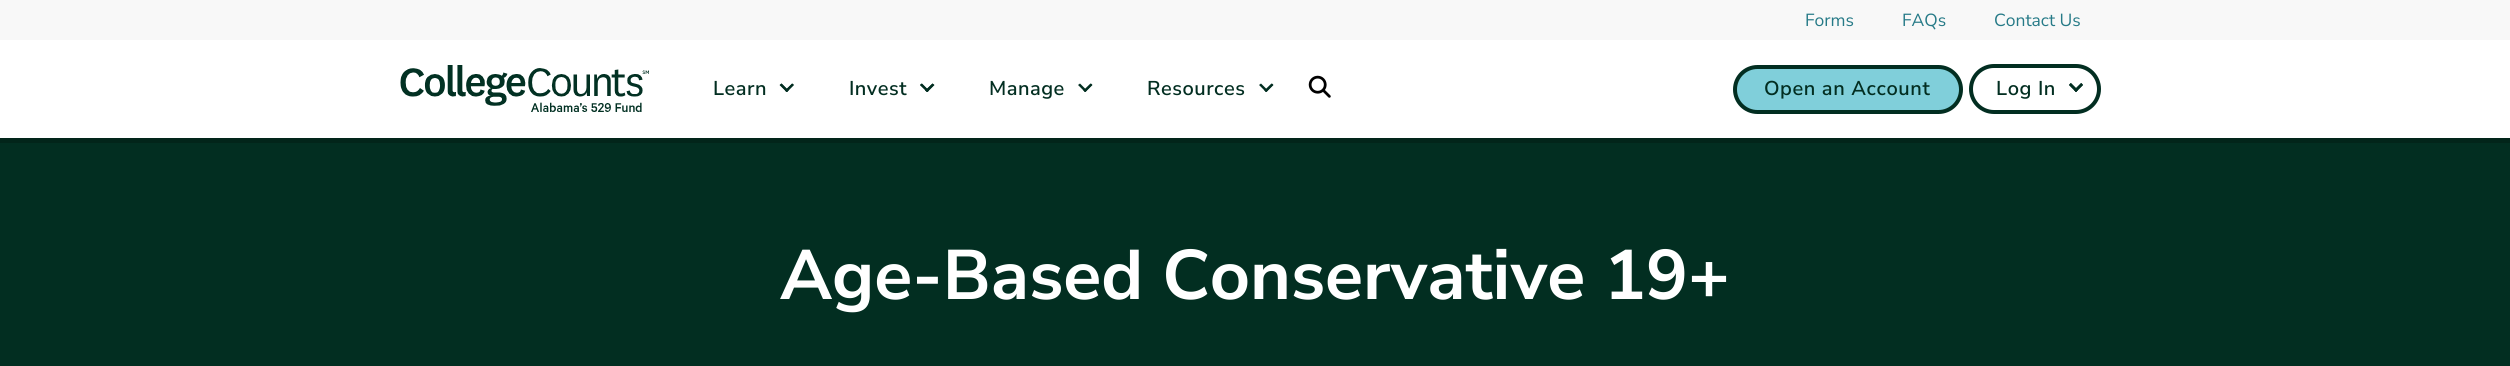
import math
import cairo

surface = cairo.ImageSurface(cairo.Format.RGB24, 2510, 366)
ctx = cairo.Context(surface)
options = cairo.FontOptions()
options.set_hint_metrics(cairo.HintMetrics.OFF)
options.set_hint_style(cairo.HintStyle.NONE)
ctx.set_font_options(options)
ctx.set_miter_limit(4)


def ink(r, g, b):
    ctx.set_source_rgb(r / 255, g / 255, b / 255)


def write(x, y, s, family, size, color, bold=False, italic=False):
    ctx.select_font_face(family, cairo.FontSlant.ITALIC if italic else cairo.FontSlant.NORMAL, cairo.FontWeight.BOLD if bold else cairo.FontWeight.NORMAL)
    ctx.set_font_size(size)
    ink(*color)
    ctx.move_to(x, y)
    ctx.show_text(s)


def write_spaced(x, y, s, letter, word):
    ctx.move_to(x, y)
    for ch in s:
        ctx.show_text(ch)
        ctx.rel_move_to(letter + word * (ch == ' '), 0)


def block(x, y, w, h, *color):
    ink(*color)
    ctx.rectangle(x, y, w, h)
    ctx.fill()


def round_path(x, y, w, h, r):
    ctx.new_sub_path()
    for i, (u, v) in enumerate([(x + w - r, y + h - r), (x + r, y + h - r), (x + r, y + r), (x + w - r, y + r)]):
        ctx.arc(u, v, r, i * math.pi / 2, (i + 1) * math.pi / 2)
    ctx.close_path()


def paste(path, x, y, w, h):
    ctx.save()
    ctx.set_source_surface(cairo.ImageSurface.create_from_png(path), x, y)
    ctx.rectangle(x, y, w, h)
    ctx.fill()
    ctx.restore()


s1 = dict(family="Nunito Sans", size=17.5, color=(38, 122, 135))
s2 = dict(family="Nunito Sans", size=70, color=(255, 255, 255), bold=True)

ink(255, 255, 255)
ctx.paint()
block(0, 0, 2510, 40, 248, 248, 248)
write(1805, 26, "Forms", **s1)
write(1902, 26, "FAQs", **s1)
write(1994, 26, "Contact Us", **s1)
paste("pic1.png", 400, 65, 249, 47)
ctx.select_font_face("Nunito Sans SemiBold")
ctx.set_font_size(20)
ink(2, 46, 33)
write_spaced(713, 95, "Learn", 0.5, 0)
ctx.new_path()
ctx.move_to(794, 85)
ctx.line_to(787, 92)
ctx.line_to(785, 90.5)
ctx.line_to(792.5, 83.5)
ctx.close_path()
ctx.fill()
ctx.new_path()
ctx.move_to(788.5, 90.5)
ctx.line_to(787, 92)
ctx.line_to(780, 85)
ctx.line_to(781.5, 83.5)
ctx.close_path()
ctx.fill()
ctx.new_path()
ctx.move_to(793.5, 85)
ctx.line_to(786.5, 92)
ctx.line_to(785, 90.5)
ctx.line_to(792, 83.5)
ctx.close_path()
ctx.fill()
ctx.new_path()
ctx.move_to(788.5, 90.5)
ctx.line_to(786.5, 92)
ctx.line_to(779.5, 85)
ctx.line_to(781.5, 83.5)
ctx.close_path()
ctx.fill()
write_spaced(849, 95, "Invest", 0.5, 0)
ctx.new_path()
ctx.move_to(934.5, 85)
ctx.line_to(927.5, 92)
ctx.line_to(925.5, 90.5)
ctx.line_to(932.5, 83.5)
ctx.close_path()
ctx.fill()
ctx.new_path()
ctx.move_to(929, 90.5)
ctx.line_to(927.5, 92)
ctx.line_to(920, 85)
ctx.line_to(922, 83.5)
ctx.close_path()
ctx.fill()
ctx.new_path()
ctx.move_to(934, 85)
ctx.line_to(927, 92)
ctx.line_to(925, 90.5)
ctx.line_to(932.5, 83.5)
ctx.close_path()
ctx.fill()
ctx.new_path()
ctx.move_to(928.5, 90.5)
ctx.line_to(927, 92)
ctx.line_to(920, 85)
ctx.line_to(921.5, 83.5)
ctx.close_path()
ctx.fill()
write_spaced(989, 95, "Manage", 0.5, 0)
ctx.new_path()
ctx.move_to(1092.5, 85)
ctx.line_to(1085.5, 92)
ctx.line_to(1083.5, 90.5)
ctx.line_to(1091, 83.5)
ctx.close_path()
ctx.fill()
ctx.new_path()
ctx.move_to(1092, 85)
ctx.line_to(1085, 92)
ctx.line_to(1083.5, 90.5)
ctx.line_to(1090.5, 83.5)
ctx.close_path()
ctx.fill()
ctx.new_path()
ctx.move_to(1087, 90.5)
ctx.line_to(1085, 92)
ctx.line_to(1078, 85)
ctx.line_to(1080, 83.5)
ctx.close_path()
ctx.fill()
write_spaced(1147, 95, "Resources", 0.5, 0)
ctx.new_path()
ctx.move_to(1273.5, 85)
ctx.line_to(1266.5, 92)
ctx.line_to(1264.5, 90.5)
ctx.line_to(1272, 83.5)
ctx.close_path()
ctx.fill()
ctx.new_path()
ctx.move_to(1273, 85)
ctx.line_to(1266, 92)
ctx.line_to(1264.5, 90.5)
ctx.line_to(1271.5, 83.5)
ctx.close_path()
ctx.fill()
ctx.new_path()
ctx.move_to(1268, 90.5)
ctx.line_to(1266, 92)
ctx.line_to(1259, 85)
ctx.line_to(1261, 83.5)
ctx.close_path()
ctx.fill()
paste("pic2.png", 1308, 75, 23, 23)
ink(128, 207, 218)
ctx.new_path()
ctx.move_to(1756, 68)
ctx.curve_to(1745, 68, 1735, 78, 1735, 90)
ctx.curve_to(1735, 101, 1745, 111, 1756, 111)
ctx.line_to(1940, 111)
ctx.curve_to(1951, 111, 1961, 101, 1961, 90)
ctx.curve_to(1961, 78, 1951, 68, 1940, 68)
ctx.close_path()
ctx.fill()
round_path(1735, 67, 226, 45, 22.5)
ink(2, 46, 33)
ctx.set_line_width(4)
ctx.stroke()
write_spaced(1764, 95, "Open an Account", 0.6, 0)
round_path(1971, 66, 128, 46, 23)
ctx.stroke()
write_spaced(1996, 95, "Log In", 0.6, 0)
ctx.new_path()
ctx.move_to(2083, 85)
ctx.line_to(2076, 92)
ctx.line_to(2074.5, 90)
ctx.line_to(2081.5, 83)
ctx.close_path()
ctx.fill()
ctx.new_path()
ctx.move_to(2078, 90)
ctx.line_to(2076, 92)
ctx.line_to(2069, 85)
ctx.line_to(2071, 83)
ctx.close_path()
ctx.fill()
ctx.new_path()
ctx.move_to(2083, 85)
ctx.line_to(2076, 92)
ctx.line_to(2074, 90)
ctx.line_to(2081, 83)
ctx.close_path()
ctx.fill()
ctx.new_path()
ctx.move_to(2077.5, 90)
ctx.line_to(2076, 92)
ctx.line_to(2069, 85)
ctx.line_to(2070.5, 83)
ctx.close_path()
ctx.fill()
block(0, 138, 2510, 5, 2, 37, 26)
block(0, 143, 2510, 223, 2, 46, 33)
write(780, 299, "Age-Based Conservative 19+", **s2)
surface.write_to_png("screenshot.png")
